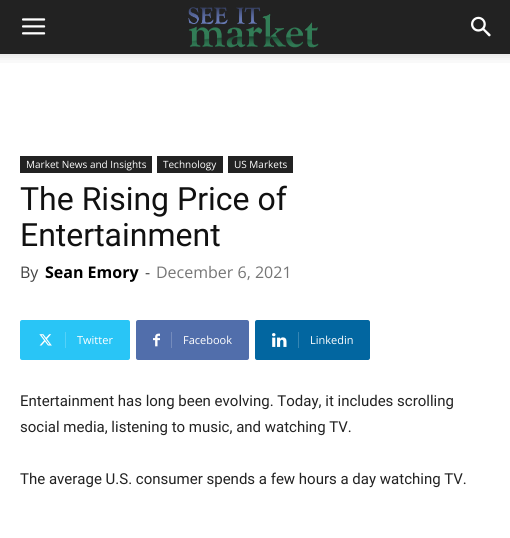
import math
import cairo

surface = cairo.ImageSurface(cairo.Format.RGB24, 510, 538)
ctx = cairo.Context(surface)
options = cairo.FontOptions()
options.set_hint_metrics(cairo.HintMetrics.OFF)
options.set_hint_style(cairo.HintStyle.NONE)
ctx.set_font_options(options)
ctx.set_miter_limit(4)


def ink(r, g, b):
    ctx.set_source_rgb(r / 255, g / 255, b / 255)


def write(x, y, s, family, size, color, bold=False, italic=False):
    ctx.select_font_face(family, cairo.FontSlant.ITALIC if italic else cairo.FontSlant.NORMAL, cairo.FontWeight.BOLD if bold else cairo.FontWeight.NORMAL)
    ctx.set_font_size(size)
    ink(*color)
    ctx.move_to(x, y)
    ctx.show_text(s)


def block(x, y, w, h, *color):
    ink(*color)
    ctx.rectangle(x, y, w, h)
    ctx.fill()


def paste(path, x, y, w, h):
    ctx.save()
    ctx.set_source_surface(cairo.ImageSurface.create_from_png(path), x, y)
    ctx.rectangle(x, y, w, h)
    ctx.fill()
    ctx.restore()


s1 = dict(family="Open Sans", size=10, color=(255, 255, 255))
s2 = dict(family="Roboto", size=32, color=(17, 17, 17))
s3 = dict(family="Open Sans", size=16, color=(68, 68, 68))
s4 = dict(family="Open Sans", size=16, color=(0, 0, 0), bold=True)
s5 = dict(family="Open Sans", size=16, color=(118, 118, 118))
s6 = dict(family="Open Sans", size=11, color=(255, 255, 255))
s7 = dict(family="Roboto", size=15, color=(34, 34, 34))

ink(255, 255, 255)
ctx.paint()
block(0, 0, 510, 54, 34, 34, 34)
paste("pic1.png", 22, 18, 24, 17)
paste("pic2.png", 188, 7, 131, 41)
paste("pic3.png", 471, 16, 20, 21)
paste("pic4.png", 0, 54, 510, 9)
block(20, 156, 132, 17, 34, 34, 34)
write(26, 168, "Market News and Insights", **s1)
block(157, 156, 66, 17, 34, 34, 34)
write(163, 168, "Technology", **s1)
block(228, 156, 65, 17, 34, 34, 34)
write(234, 168, "US Markets", **s1)
write(20, 210, "The Rising Price of", **s2)
write(20, 246, "Entertainment", **s2)
write(20, 278, "By", **s3)
write(45, 278, "Sean Emory", **s4)
write(145, 278, "-", **s3)
write(156, 278, "December 6, 2021", **s5)
ink(41, 197, 246)
ctx.new_path()
ctx.move_to(65, 320)
ctx.line_to(128, 320)
ctx.curve_to(129, 320, 130, 321, 130, 322)
ctx.line_to(130, 358)
ctx.curve_to(130, 359, 129, 360, 128, 360)
ctx.line_to(65, 360)
ctx.close_path()
ctx.fill()
ctx.new_path()
ctx.move_to(22, 320)
ctx.line_to(71, 320)
ctx.line_to(71, 360)
ctx.line_to(22, 360)
ctx.curve_to(21, 360, 20, 359, 20, 358)
ctx.line_to(20, 322)
ctx.curve_to(20, 321, 21, 320, 22, 320)
ctx.close_path()
ctx.fill()
paste("pic5.png", 39, 334, 13, 12)
block(65, 332, 1, 16, 84, 209, 248)
write(77, 344, "Twitter", **s6)
ink(81, 110, 171)
ctx.new_path()
ctx.move_to(171, 320)
ctx.line_to(247, 320)
ctx.curve_to(248, 320, 249, 321, 249, 322)
ctx.line_to(249, 358)
ctx.curve_to(249, 359, 248, 360, 247, 360)
ctx.line_to(171, 360)
ctx.close_path()
ctx.fill()
ctx.new_path()
ctx.move_to(138, 320)
ctx.line_to(177, 320)
ctx.line_to(177, 360)
ctx.line_to(138, 360)
ctx.curve_to(137, 360, 136, 359, 136, 358)
ctx.line_to(136, 322)
ctx.curve_to(136, 321, 137, 320, 138, 320)
ctx.close_path()
ctx.fill()
paste("pic6.png", 153, 333, 7, 14)
block(171, 332, 1, 16, 116, 139, 188)
write(183, 344, "Facebook", **s6)
ink(2, 102, 160)
ctx.new_path()
ctx.move_to(298, 320)
ctx.line_to(368, 320)
ctx.curve_to(369, 320, 370, 321, 370, 322)
ctx.line_to(370, 358)
ctx.curve_to(370, 359, 369, 360, 368, 360)
ctx.line_to(298, 360)
ctx.close_path()
ctx.fill()
ctx.new_path()
ctx.move_to(257, 320)
ctx.line_to(304, 320)
ctx.line_to(304, 360)
ctx.line_to(257, 360)
ctx.curve_to(256, 360, 255, 359, 255, 358)
ctx.line_to(255, 322)
ctx.curve_to(255, 321, 256, 320, 257, 320)
ctx.close_path()
ctx.fill()
paste("pic7.png", 272, 333, 15, 14)
block(298, 332, 1, 16, 53, 133, 179)
write(310, 344, "Linkedin", **s6)
write(20, 406, "Entertainment has long been evolving. Today, it includes scrolling", **s7)
write(20, 432, "social media, listening to music, and watching TV.", **s7)
write(20, 484, "The average U.S. consumer spends a few hours a day watching TV.", **s7)
surface.write_to_png("screenshot.png")
